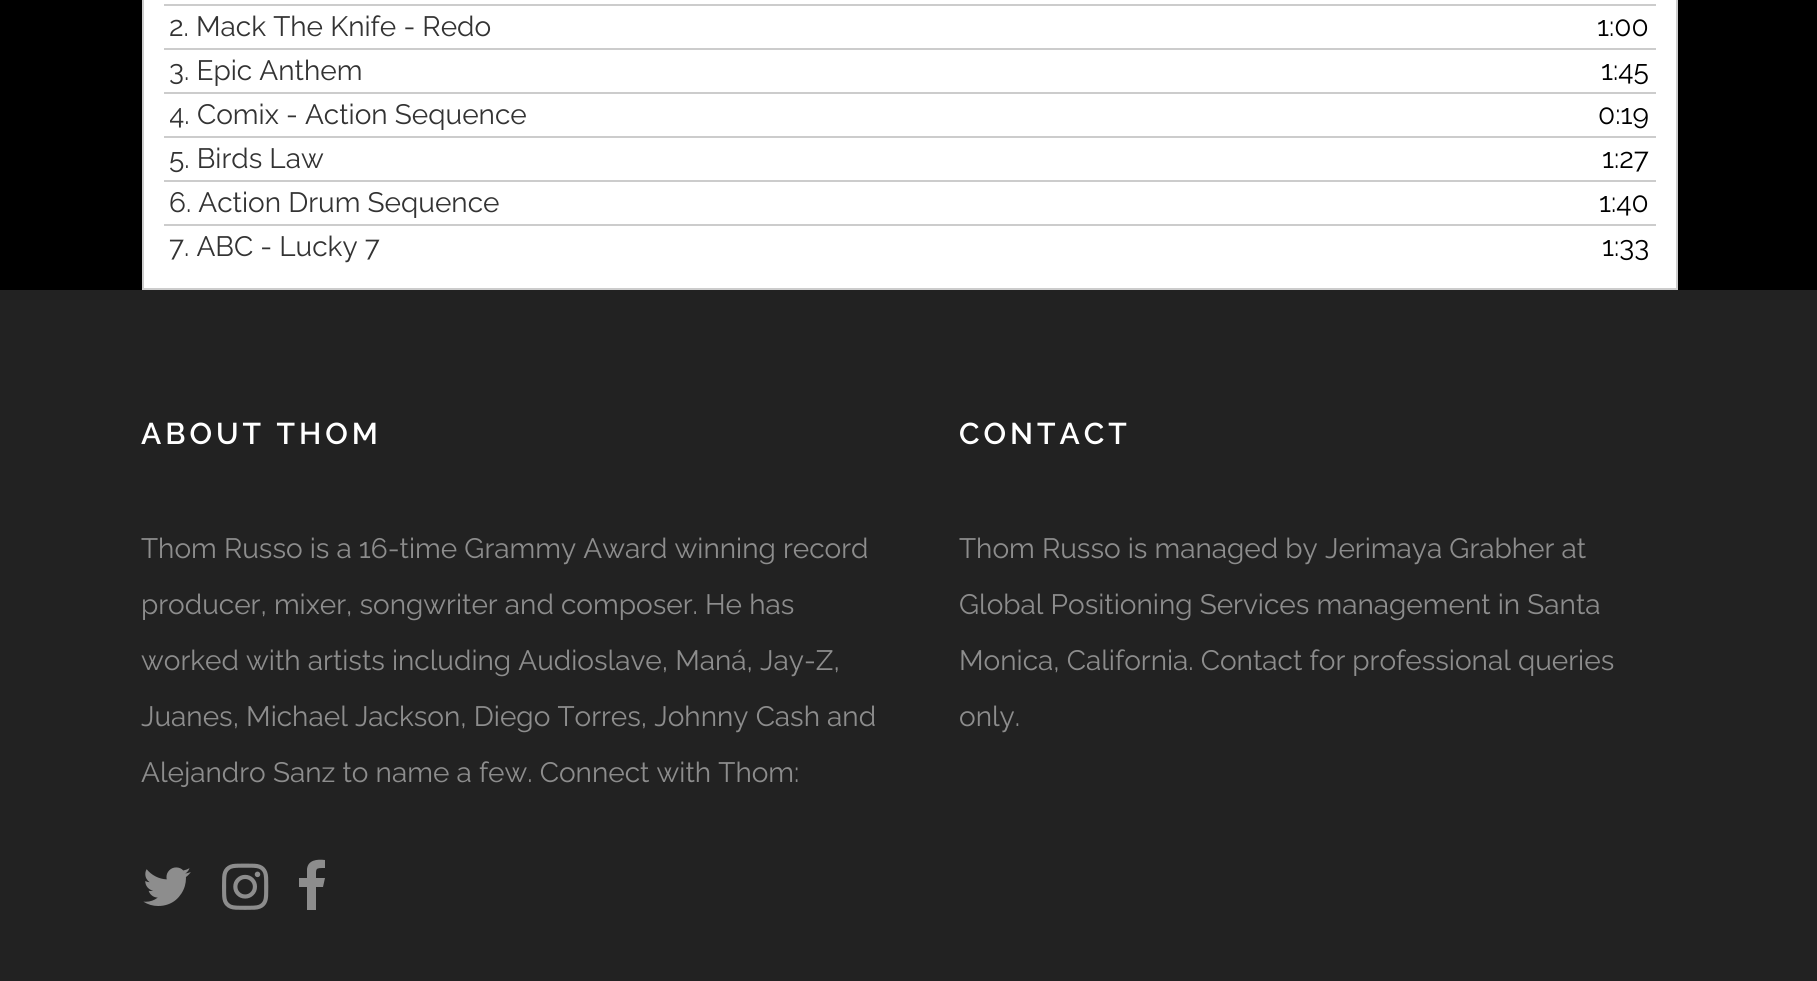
import math
import cairo

surface = cairo.ImageSurface(cairo.Format.RGB24, 1817, 981)
ctx = cairo.Context(surface)
options = cairo.FontOptions()
options.set_hint_metrics(cairo.HintMetrics.OFF)
options.set_hint_style(cairo.HintStyle.NONE)
ctx.set_font_options(options)
ctx.set_miter_limit(4)


def ink(r, g, b):
    ctx.set_source_rgb(r / 255, g / 255, b / 255)


def write(x, y, s, family, size, color, bold=False, italic=False):
    ctx.select_font_face(family, cairo.FontSlant.ITALIC if italic else cairo.FontSlant.NORMAL, cairo.FontWeight.BOLD if bold else cairo.FontWeight.NORMAL)
    ctx.set_font_size(size)
    ink(*color)
    ctx.move_to(x, y)
    ctx.show_text(s)


def write_spaced(x, y, s, letter, word):
    ctx.move_to(x, y)
    for ch in s:
        ctx.show_text(ch)
        ctx.rel_move_to(letter + word * (ch == ' '), 0)


def block(x, y, w, h, *color):
    ink(*color)
    ctx.rectangle(x, y, w, h)
    ctx.fill()


def paste(path, x, y, w, h):
    ctx.save()
    ctx.set_source_surface(cairo.ImageSurface.create_from_png(path), x, y)
    ctx.rectangle(x, y, w, h)
    ctx.fill()
    ctx.restore()


s1 = dict(family="Raleway", size=28, color=(51, 51, 51))
s2 = dict(family="Raleway", size=28, color=(0, 0, 0))
s3 = dict(family="Raleway", size=28, color=(141, 141, 141))

ink(0, 0, 0)
ctx.paint()
ink(255, 255, 255)
ctx.rectangle(143, -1, 1534, 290)
ctx.fill_preserve()
ink(204, 204, 204)
ctx.stroke()
block(164, 4, 1492, 2, 204, 204, 204)
block(164, 48, 1492, 2, 204, 204, 204)
write(169, 36, "2. Mack The Knife - Redo", **s1)
write(1597, 36, "1:00", **s2)
block(164, 92, 1492, 2, 204, 204, 204)
write(169, 80, "3. Epic Anthem", **s1)
write(1601, 80, "1:45", **s2)
block(164, 136, 1492, 2, 204, 204, 204)
ctx.save()
ctx.rectangle(170, 94, 1400, 42)
ctx.clip()
write(169, 124, "4.", **s1)
ctx.restore()
write(197, 124, "Comix - Action Sequence", **s1)
write(1598, 124, "0:19", **s2)
block(164, 180, 1492, 2, 204, 204, 204)
write(169, 168, "5. Birds Law", **s1)
write(1602, 168, "1:27", **s2)
block(164, 224, 1492, 2, 204, 204, 204)
write(169, 212, "6. Action Drum Sequence", **s1)
write(1599, 212, "1:40", **s2)
write(169, 256, "7. ABC - Lucky 7", **s1)
write(1602, 256, "1:33", **s2)
block(0, 290, 1817, 691, 34, 34, 34)
ctx.select_font_face("Raleway SemiBold")
ctx.set_font_size(30)
ink(255, 255, 255)
write_spaced(141, 444, "ABOUT THOM", 4, 0)
write(141, 558, "Thom Russo is a 16-time Grammy Award winning record", **s3)
write(141, 614, "producer, mixer, songwriter and composer. He has", **s3)
write(141, 670, "worked with artists including Audioslave, Maná, Jay-Z,", **s3)
write(141, 726, "Juanes, Michael Jackson, Diego Torres, Johnny Cash and", **s3)
write(141, 782, "Alejandro Sanz to name a few. Connect with Thom:", **s3)
paste("pic1.png", 143, 867, 48, 39)
paste("pic2.png", 222, 863, 47, 47)
ctx.new_path()
ctx.move_to(325, 860)
ctx.line_to(325, 868)
ctx.curve_to(315, 868, 316, 868, 316, 878)
ctx.line_to(325, 878)
ctx.line_to(323, 887)
ctx.line_to(316, 887)
ctx.line_to(316, 910)
ctx.line_to(307, 910)
ctx.line_to(307, 887)
ctx.line_to(299, 887)
ctx.line_to(299, 878)
ctx.line_to(307, 878)
ctx.line_to(307, 869)
ctx.curve_to(308, 860, 317, 859, 325, 860)
ctx.close_path()
ctx.fill()
ctx.select_font_face("Raleway SemiBold")
ctx.set_font_size(30)
ink(255, 255, 255)
write_spaced(959, 444, "CONTACT", 4, 0)
write(959, 558, "Thom Russo is managed by Jerimaya Grabher at", **s3)
write(959, 614, "Global Positioning Services management in Santa", **s3)
write(959, 670, "Monica, California. Contact for professional queries", **s3)
write(959, 726, "only.", **s3)
surface.write_to_png("screenshot.png")
